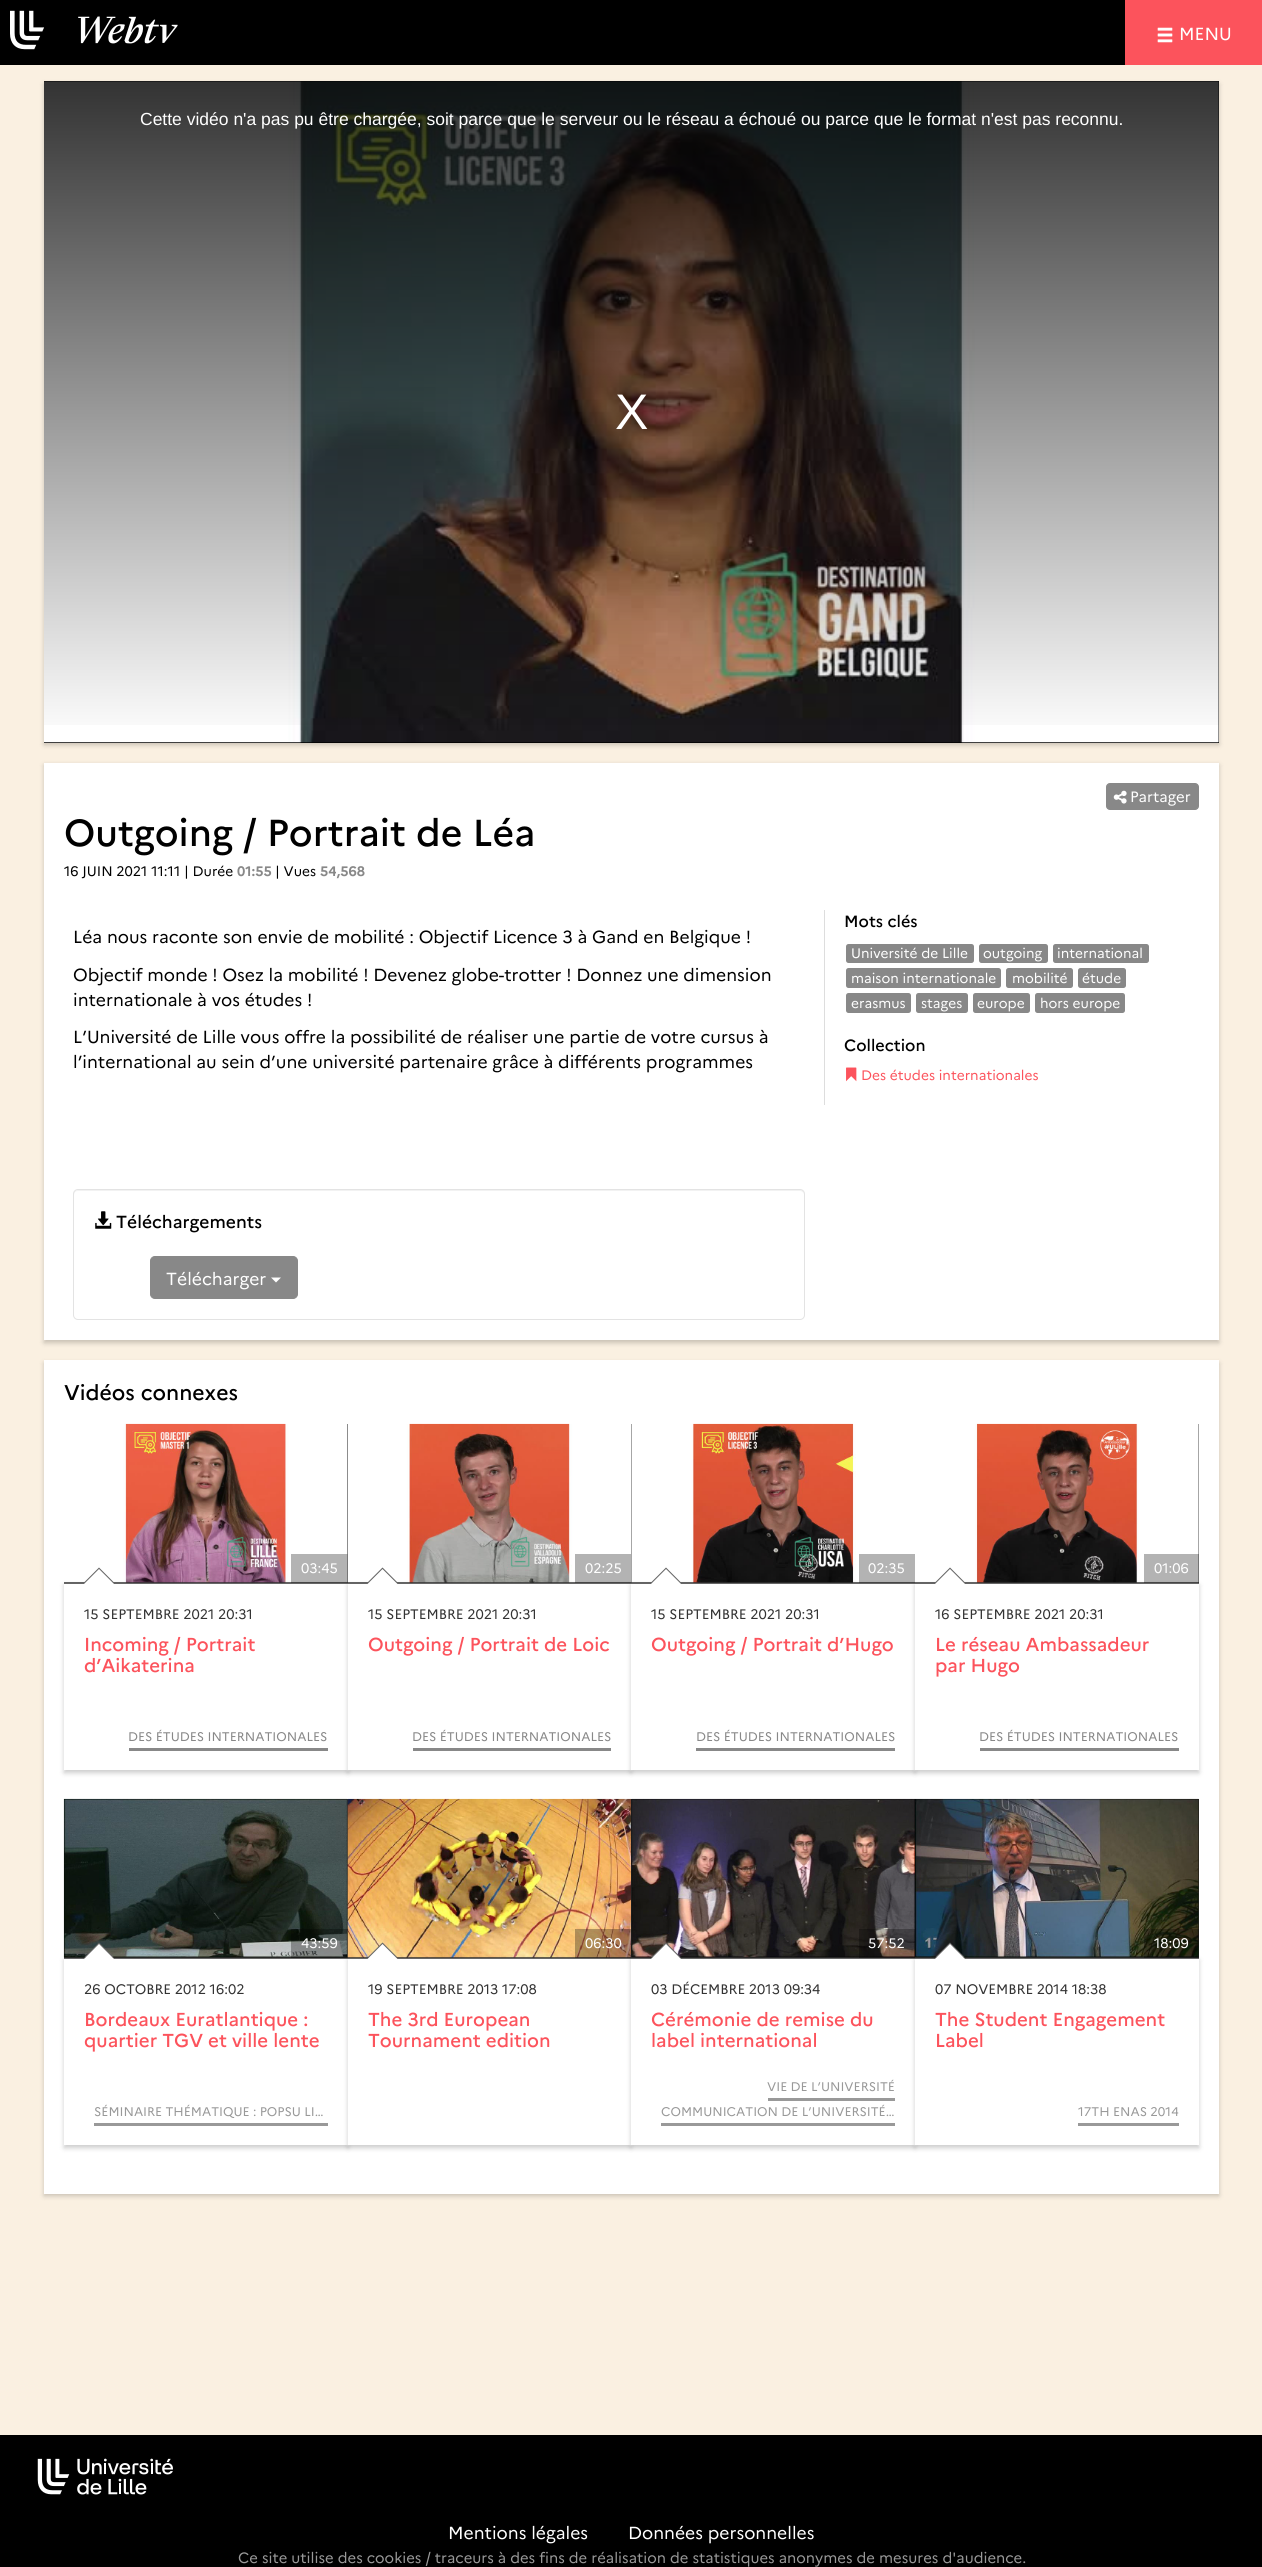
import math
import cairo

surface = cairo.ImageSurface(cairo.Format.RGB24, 1262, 2567)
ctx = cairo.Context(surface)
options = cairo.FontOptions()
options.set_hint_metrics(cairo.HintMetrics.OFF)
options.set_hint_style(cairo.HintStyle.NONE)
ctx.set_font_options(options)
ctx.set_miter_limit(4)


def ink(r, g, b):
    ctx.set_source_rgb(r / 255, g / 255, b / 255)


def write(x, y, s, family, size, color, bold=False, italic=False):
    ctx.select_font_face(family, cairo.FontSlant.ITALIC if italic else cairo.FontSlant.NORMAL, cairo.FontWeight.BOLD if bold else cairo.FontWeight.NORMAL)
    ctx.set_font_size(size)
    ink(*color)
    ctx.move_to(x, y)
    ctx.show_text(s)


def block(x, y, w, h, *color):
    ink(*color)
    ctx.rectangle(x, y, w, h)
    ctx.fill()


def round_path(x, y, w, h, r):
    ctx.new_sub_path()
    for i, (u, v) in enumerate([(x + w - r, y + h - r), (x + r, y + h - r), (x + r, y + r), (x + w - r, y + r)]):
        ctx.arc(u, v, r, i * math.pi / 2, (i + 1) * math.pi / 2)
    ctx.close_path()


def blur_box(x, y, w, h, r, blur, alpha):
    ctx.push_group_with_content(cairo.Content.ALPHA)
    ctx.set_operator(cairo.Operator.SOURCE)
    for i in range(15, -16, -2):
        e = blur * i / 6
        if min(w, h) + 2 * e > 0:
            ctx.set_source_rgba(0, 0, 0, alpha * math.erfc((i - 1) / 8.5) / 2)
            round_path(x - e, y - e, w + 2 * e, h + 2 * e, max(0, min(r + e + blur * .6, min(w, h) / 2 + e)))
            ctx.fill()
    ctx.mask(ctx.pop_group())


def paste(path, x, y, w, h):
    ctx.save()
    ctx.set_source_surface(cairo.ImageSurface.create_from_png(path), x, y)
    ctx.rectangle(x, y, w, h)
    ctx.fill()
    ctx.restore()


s1 = dict(family="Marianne", size=17.5, color=(255, 255, 255))
s2 = dict(family="Liberation Sans", size=17.5, color=(255, 255, 255))
s3 = dict(family="Liberation Sans", size=50, color=(255, 255, 255))
s4 = dict(family="Marianne", size=15, color=(255, 255, 255))
s5 = dict(family="Marianne Medium", size=37.5, color=(0, 0, 0))
s6 = dict(family="Marianne", size=13.75, color=(0, 0, 0))
s7 = dict(family="Marianne", size=13.75, color=(136, 136, 136), bold=True)
s8 = dict(family="Marianne", size=17.5, color=(0, 0, 0))
s9 = dict(family="Marianne Medium", size=17.5, color=(0, 0, 0))
s10 = dict(family="Marianne Medium", size=16.25, color=(0, 0, 0))
s11 = dict(family="Marianne", size=13.75, color=(255, 255, 255))
s12 = dict(family="Marianne", size=13.75, color=(252, 83, 92))
s13 = dict(family="Marianne Medium", size=21.25, color=(0, 0, 0))
s14 = dict(family="Marianne", size=13.75, color=(51, 51, 51))
s15 = dict(family="Marianne Medium", size=18.75, color=(252, 83, 92))
s16 = dict(family="Marianne", size=12.5, color=(136, 136, 136))
s17 = dict(family="Marianne", size=12.5, color=(153, 153, 153))
s18 = dict(family="Marianne", size=14.88, color=(153, 153, 153))

ink(250, 240, 225)
ctx.paint()
block(0, 0, 1125, 65, 0, 0, 0)
paste("pic1.png", 10, 10, 168, 40)
block(1125, 0, 137, 65, 252, 83, 92)
paste("pic2.png", 1157, 27, 16, 16)
write(1179, 40, "MENU", **s1)
ink(0, 0, 0)
blur_box(44, 84, 1175, 661, 0, 2.5, 0.2)
block(44, 81, 1175, 662, 0, 0, 0)
paste("pic3.png", 44, 81, 1175, 662)
gradient = cairo.LinearGradient(631, 81, 631, 743)
gradient.add_color_stop_rgba(0, 0, 0, 0, 0.8)
gradient.add_color_stop_rgba(1, 0, 0, 0, 0)
ctx.set_source(gradient)
ctx.rectangle(44, 81, 1175, 644)
ctx.fill()
write(140, 125, "Cette vidéo n'a pas pu être chargée, soit parce que le serveur ou le réseau a échoué ou parce que le format n'est pas reconnu.", **s2)
write(615, 429, "X", **s3)
ink(0, 0, 0)
blur_box(44, 765, 1175, 578, 0, 2.5, 0.2)
block(44, 763, 1175, 577, 255, 255, 255)
ink(136, 136, 136)
round_path(1106.5, 783.5, 92, 26, 3.5)
ctx.fill_preserve()
ctx.set_line_width(1)
ctx.stroke()
paste("pic4.png", 1113, 790, 14, 14)
write(1130, 802, "Partager", **s4)
write(64, 846, "Outgoing / Portrait de Léa", **s5)
write(64, 876, "16 JUIN 2021 11:11 | Durée", **s6)
write(237, 876, "01:55", **s7)
write(275, 876, "| Vues", **s6)
write(320, 876, "54,568", **s7)
write(73, 943, "Léa nous raconte son envie de mobilité : Objectif Licence 3 à Gand en Belgique !", **s8)
write(73, 981, "Objectif monde ! Osez la mobilité ! Devenez globe-trotter ! Donnez une dimension", **s8)
write(73, 1006, "internationale à vos études !", **s8)
write(73, 1043, "L’Université de Lille vous offre la possibilité de réaliser une partie de votre cursus à", **s8)
write(73, 1068, "l’international au sein d’une université partenaire grâce à différents programmes", **s8)
ink(242, 242, 242)
ctx.new_path()
ctx.move_to(78, 1191)
ctx.line_to(800, 1191)
ctx.curve_to(802, 1191, 804, 1193, 804, 1195)
ctx.curve_to(804, 1192, 803, 1190, 800, 1190)
ctx.line_to(78, 1190)
ctx.line_to(75, 1191)
ctx.line_to(74, 1192)
ctx.line_to(74, 1195)
ctx.curve_to(74, 1193, 75, 1191, 78, 1191)
ctx.close_path()
ctx.fill()
round_path(73.5, 1189.5, 731, 130, 4.5)
ink(227, 227, 227)
ctx.stroke()
paste("pic5.png", 95, 1211, 17, 18)
write(116, 1228, "Téléchargements", **s9)
ink(136, 136, 136)
round_path(150.5, 1256.5, 147, 42, 4.5)
ctx.fill_preserve()
ctx.stroke()
write(166, 1285, "Télécharger", **s1)
ctx.new_path()
ctx.move_to(271, 1277.5)
ctx.line_to(281, 1277.5)
ctx.line_to(276, 1282.5)
ctx.close_path()
ctx.fill()
block(824, 910, 1, 195, 221, 221, 221)
write(844, 927, "Mots clés", **s10)
ink(136, 136, 136)
round_path(846, 944, 128, 19, 2.5)
ctx.fill()
write(851, 958, "Université de Lille", **s11)
ink(136, 136, 136)
round_path(979, 944, 69, 19, 2.5)
ctx.fill()
write(983, 958, "outgoing", **s11)
ink(136, 136, 136)
round_path(1053, 944, 96, 19, 2.5)
ctx.fill()
write(1057, 958, "international", **s11)
ink(136, 136, 136)
round_path(846, 968, 155, 20, 2.5)
ctx.fill()
write(851, 983, "maison internationale", **s11)
ink(136, 136, 136)
round_path(1006, 968, 67, 20, 2.5)
ctx.fill()
write(1012, 983, "mobilité", **s11)
ink(136, 136, 136)
round_path(1078, 968, 48, 20, 2.5)
ctx.fill()
write(1082, 983, "étude", **s11)
ink(136, 136, 136)
round_path(846, 993, 65, 20, 2.5)
ctx.fill()
write(851, 1008, "erasmus", **s11)
ink(136, 136, 136)
round_path(916, 993, 52, 20, 2.5)
ctx.fill()
write(921, 1008, "stages", **s11)
ink(136, 136, 136)
round_path(973, 993, 57, 20, 2.5)
ctx.fill()
write(977, 1008, "europe", **s11)
ink(136, 136, 136)
round_path(1035, 993, 90, 20, 2.5)
ctx.fill()
write(1040, 1008, "hors europe", **s11)
write(844, 1051, "Collection", **s10)
paste("pic6.png", 846, 1067, 11, 15)
write(861, 1080, "Des études internationales", **s12)
ink(0, 0, 0)
blur_box(44, 1363, 1175, 833, 0, 2.5, 0.2)
block(44, 1360, 1175, 834, 255, 255, 255)
write(64, 1400, "Vidéos connexes", **s13)
block(64, 1424, 284, 159, 51, 51, 51)
paste("pic7.png", 64, 1423, 284, 160)
ctx.set_source_rgba(0, 0, 0, 0.3)
ctx.rectangle(291, 1554, 57, 29)
ctx.fill()
write(301, 1573, "03:45", **s11)
ink(0, 0, 0)
blur_box(64, 1585, 284, 188, 0, 2.5, 0.2)
block(64, 1584, 284, 186, 255, 255, 255)
block(64, 1583, 284, 1, 102, 102, 102)
ctx.new_path()
ctx.move_to(114, 1582.5)
ctx.line_to(84, 1582.5)
ctx.line_to(99, 1567.5)
ctx.close_path()
ctx.fill()
ink(255, 255, 255)
ctx.new_path()
ctx.move_to(114, 1584)
ctx.line_to(84, 1584)
ctx.line_to(99, 1569)
ctx.close_path()
ctx.fill()
write(84, 1619, "15 SEPTEMBRE 2021 20:31", **s14)
write(84, 1651, "Incoming / Portrait", **s15)
write(84, 1672, "d’Aikaterina", **s15)
block(129, 1748, 199, 3, 136, 136, 136)
write(128, 1741, "DES ÉTUDES INTERNATIONALES", **s16)
block(348, 1582, 283, 1, 51, 51, 51)
paste("pic8.png", 347, 1423, 284, 160)
ctx.set_source_rgba(0, 0, 0, 0.3)
ctx.rectangle(575, 1554, 56, 29)
ctx.fill()
write(585, 1573, "02:25", **s11)
ink(0, 0, 0)
blur_box(348, 1585, 283, 188, 0, 2.5, 0.2)
block(348, 1584, 283, 186, 255, 255, 255)
block(348, 1583, 283, 1, 102, 102, 102)
ctx.new_path()
ctx.move_to(397.5, 1582.5)
ctx.line_to(367.5, 1582.5)
ctx.line_to(382.5, 1567.5)
ctx.close_path()
ctx.fill()
ink(255, 255, 255)
ctx.new_path()
ctx.move_to(397.5, 1584)
ctx.line_to(367.5, 1584)
ctx.line_to(382.5, 1569)
ctx.close_path()
ctx.fill()
write(368, 1619, "15 SEPTEMBRE 2021 20:31", **s14)
write(368, 1651, "Outgoing / Portrait de Loic", **s15)
block(413, 1748, 198, 3, 136, 136, 136)
write(412, 1741, "DES ÉTUDES INTERNATIONALES", **s16)
block(631, 1424, 284, 159, 51, 51, 51)
paste("pic9.png", 631, 1423, 284, 160)
ctx.set_source_rgba(0, 0, 0, 0.3)
ctx.rectangle(859, 1554, 56, 29)
ctx.fill()
write(868, 1573, "02:35", **s11)
ink(0, 0, 0)
blur_box(631, 1585, 284, 188, 0, 2.5, 0.2)
block(631, 1584, 284, 186, 255, 255, 255)
block(631, 1583, 284, 1, 102, 102, 102)
ctx.new_path()
ctx.move_to(681, 1582.5)
ctx.line_to(651, 1582.5)
ctx.line_to(666, 1567.5)
ctx.close_path()
ctx.fill()
ink(255, 255, 255)
ctx.new_path()
ctx.move_to(681, 1584)
ctx.line_to(651, 1584)
ctx.line_to(666, 1569)
ctx.close_path()
ctx.fill()
write(651, 1619, "15 SEPTEMBRE 2021 20:31", **s14)
write(651, 1651, "Outgoing / Portrait d’Hugo", **s15)
block(696, 1748, 199, 3, 136, 136, 136)
write(696, 1741, "DES ÉTUDES INTERNATIONALES", **s16)
block(915, 1424, 284, 159, 51, 51, 51)
paste("pic10.png", 915, 1423, 284, 160)
ctx.set_source_rgba(0, 0, 0, 0.3)
ctx.rectangle(1144, 1554, 55, 29)
ctx.fill()
write(1154, 1573, "01:06", **s11)
ink(0, 0, 0)
blur_box(915, 1585, 284, 188, 0, 2.5, 0.2)
block(915, 1584, 284, 186, 255, 255, 255)
block(915, 1583, 284, 1, 102, 102, 102)
ctx.new_path()
ctx.move_to(965, 1582.5)
ctx.line_to(935, 1582.5)
ctx.line_to(950, 1567.5)
ctx.close_path()
ctx.fill()
ink(255, 255, 255)
ctx.new_path()
ctx.move_to(965, 1584)
ctx.line_to(935, 1584)
ctx.line_to(950, 1569)
ctx.close_path()
ctx.fill()
write(935, 1619, "16 SEPTEMBRE 2021 20:31", **s14)
write(935, 1651, "Le réseau Ambassadeur", **s15)
write(935, 1672, "par Hugo", **s15)
block(980, 1748, 199, 3, 136, 136, 136)
write(979, 1741, "DES ÉTUDES INTERNATIONALES", **s16)
block(64, 1799, 284, 159, 51, 51, 51)
paste("pic11.png", 63, 1798, 285, 160)
ctx.set_source_rgba(0, 0, 0, 0.3)
ctx.rectangle(291, 1929, 57, 29)
ctx.fill()
write(301, 1948, "43:59", **s11)
ink(0, 0, 0)
blur_box(64, 1960, 284, 188, 0, 2.5, 0.2)
block(64, 1959, 284, 186, 255, 255, 255)
block(64, 1958, 284, 1, 102, 102, 102)
ctx.new_path()
ctx.move_to(114, 1957.5)
ctx.line_to(84, 1957.5)
ctx.line_to(99, 1942.5)
ctx.close_path()
ctx.fill()
ink(255, 255, 255)
ctx.new_path()
ctx.move_to(114, 1959)
ctx.line_to(84, 1959)
ctx.line_to(99, 1944)
ctx.close_path()
ctx.fill()
write(84, 1994, "26 OCTOBRE 2012 16:02", **s14)
write(84, 2026, "Bordeaux Euratlantique :", **s15)
write(84, 2047, "quartier TGV et ville lente", **s15)
block(94, 2123, 234, 3, 153, 153, 153)
write(94, 2116, "SÉMINAIRE THÉMATIQUE : POPSU LI…", **s17)
block(348, 1957, 283, 1, 51, 51, 51)
paste("pic12.png", 347, 1798, 284, 160)
ctx.set_source_rgba(0, 0, 0, 0.3)
ctx.rectangle(575, 1929, 56, 29)
ctx.fill()
write(585, 1948, "06:30", **s11)
ink(0, 0, 0)
blur_box(348, 1960, 283, 188, 0, 2.5, 0.2)
block(348, 1959, 283, 186, 255, 255, 255)
block(348, 1958, 283, 1, 102, 102, 102)
ctx.new_path()
ctx.move_to(397.5, 1957.5)
ctx.line_to(367.5, 1957.5)
ctx.line_to(382.5, 1942.5)
ctx.close_path()
ctx.fill()
ink(255, 255, 255)
ctx.new_path()
ctx.move_to(397.5, 1959)
ctx.line_to(367.5, 1959)
ctx.line_to(382.5, 1944)
ctx.close_path()
ctx.fill()
write(368, 1994, "19 SEPTEMBRE 2013 17:08", **s14)
write(368, 2026, "The 3rd European", **s15)
write(368, 2047, "Tournament edition", **s15)
block(631, 1799, 284, 159, 51, 51, 51)
paste("pic13.png", 631, 1798, 284, 160)
ctx.set_source_rgba(0, 0, 0, 0.3)
ctx.rectangle(859, 1929, 56, 29)
ctx.fill()
write(868, 1948, "57:52", **s11)
ink(0, 0, 0)
blur_box(631, 1960, 284, 188, 0, 2.5, 0.2)
block(631, 1959, 284, 186, 255, 255, 255)
block(631, 1958, 284, 1, 102, 102, 102)
ctx.new_path()
ctx.move_to(681, 1957.5)
ctx.line_to(651, 1957.5)
ctx.line_to(666, 1942.5)
ctx.close_path()
ctx.fill()
ink(255, 255, 255)
ctx.new_path()
ctx.move_to(681, 1959)
ctx.line_to(651, 1959)
ctx.line_to(666, 1944)
ctx.close_path()
ctx.fill()
write(651, 1994, "03 DÉCEMBRE 2013 09:34", **s14)
write(651, 2026, "Cérémonie de remise du", **s15)
write(651, 2047, "label international", **s15)
gradient = cairo.LinearGradient(773, 2045, 773, 2075)
gradient.add_color_stop_rgba(0, 1, 1, 1, 0)
gradient.add_color_stop_rgba(0.8, 1, 1, 1, 1)
ctx.set_source(gradient)
ctx.rectangle(653, 2046, 163, 2)
ctx.fill()
block(768, 2098, 127, 3, 153, 153, 153)
write(767, 2091, "VIE DE L’UNIVERSITÉ", **s17)
block(661, 2123, 234, 3, 153, 153, 153)
write(661, 2116, "COMMUNICATION DE L’UNIVERSITÉ…", **s17)
block(915, 1799, 284, 159, 51, 51, 51)
paste("pic14.png", 915, 1798, 284, 160)
ctx.set_source_rgba(0, 0, 0, 0.3)
ctx.rectangle(1144, 1929, 55, 29)
ctx.fill()
write(1154, 1948, "18:09", **s11)
ink(0, 0, 0)
blur_box(915, 1960, 284, 188, 0, 2.5, 0.2)
block(915, 1959, 284, 186, 255, 255, 255)
block(915, 1958, 284, 1, 102, 102, 102)
ctx.new_path()
ctx.move_to(965, 1957.5)
ctx.line_to(935, 1957.5)
ctx.line_to(950, 1942.5)
ctx.close_path()
ctx.fill()
ink(255, 255, 255)
ctx.new_path()
ctx.move_to(965, 1959)
ctx.line_to(935, 1959)
ctx.line_to(950, 1944)
ctx.close_path()
ctx.fill()
write(935, 1994, "07 NOVEMBRE 2014 18:38", **s14)
write(935, 2026, "The Student Engagement", **s15)
write(935, 2047, "Label", **s15)
block(1078, 2123, 101, 3, 153, 153, 153)
write(1078, 2116, "17TH ENAS 2014", **s17)
block(0, 2435, 1262, 132, 0, 0, 0)
paste("pic15.png", 37, 2458, 136, 37)
write(448, 2539, "Mentions légales", **s1)
write(628, 2539, "Données personnelles", **s1)
write(238, 2563, "Ce site utilise des cookies / traceurs à des fins de réalisation de statistiques anonymes de mesures d'audience.", **s18)
surface.write_to_png("screenshot.png")
